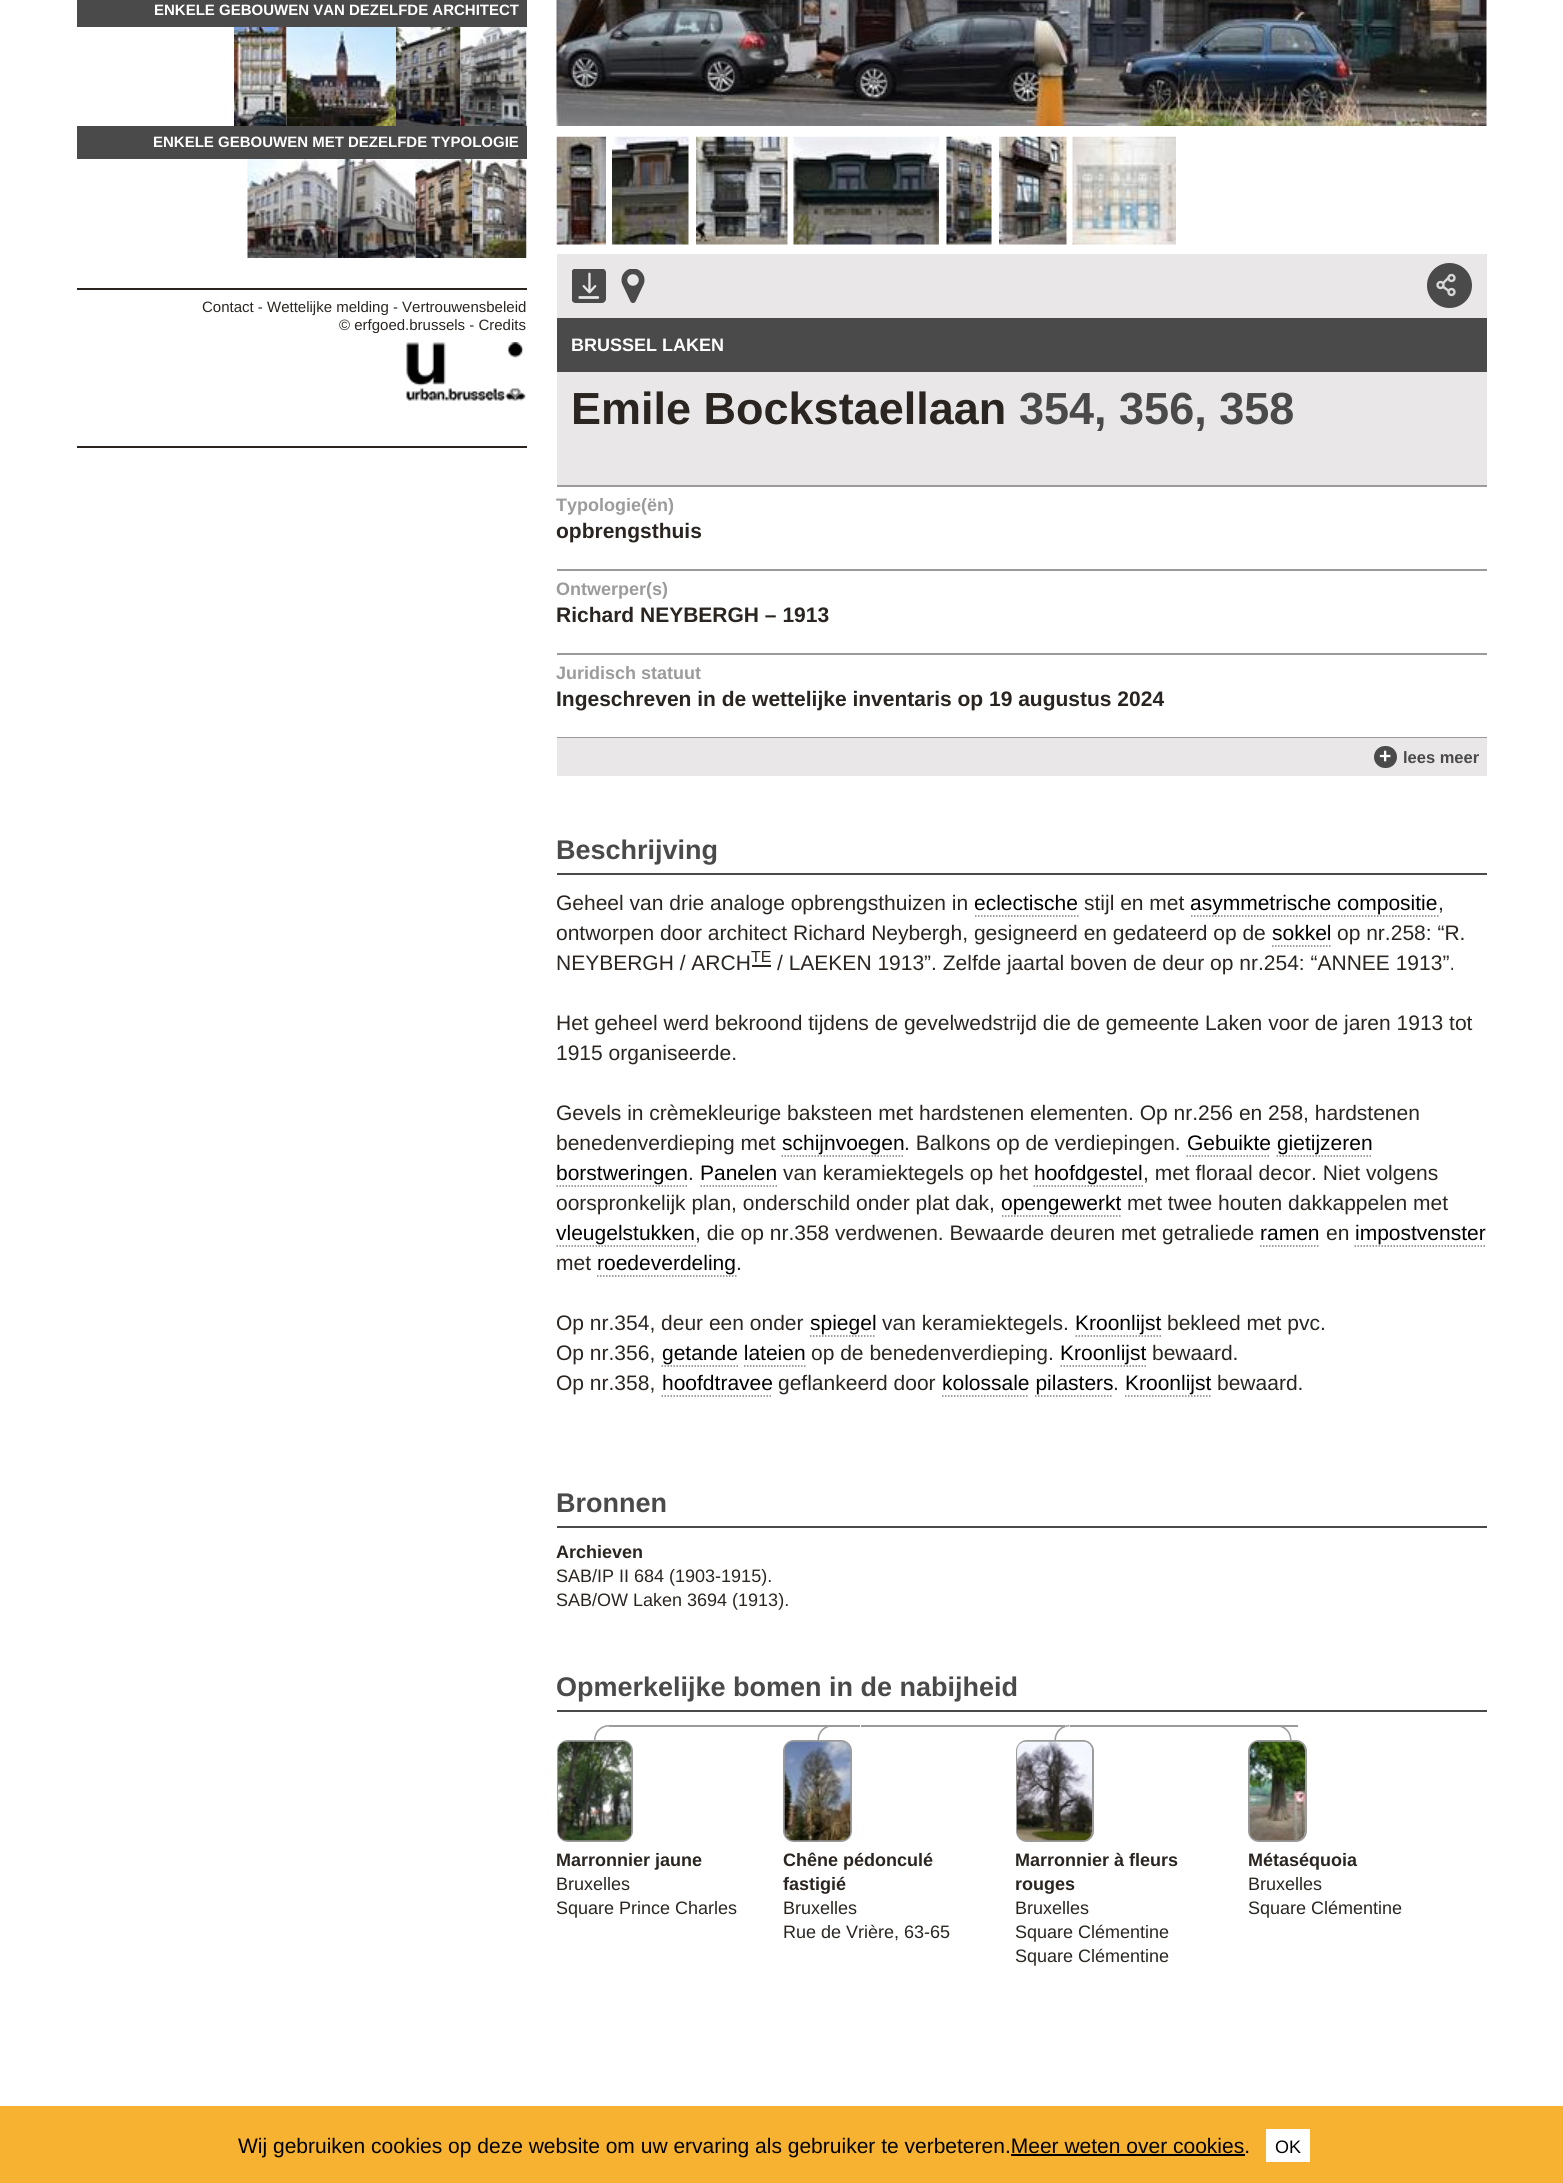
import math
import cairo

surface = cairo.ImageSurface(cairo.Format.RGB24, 1563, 2183)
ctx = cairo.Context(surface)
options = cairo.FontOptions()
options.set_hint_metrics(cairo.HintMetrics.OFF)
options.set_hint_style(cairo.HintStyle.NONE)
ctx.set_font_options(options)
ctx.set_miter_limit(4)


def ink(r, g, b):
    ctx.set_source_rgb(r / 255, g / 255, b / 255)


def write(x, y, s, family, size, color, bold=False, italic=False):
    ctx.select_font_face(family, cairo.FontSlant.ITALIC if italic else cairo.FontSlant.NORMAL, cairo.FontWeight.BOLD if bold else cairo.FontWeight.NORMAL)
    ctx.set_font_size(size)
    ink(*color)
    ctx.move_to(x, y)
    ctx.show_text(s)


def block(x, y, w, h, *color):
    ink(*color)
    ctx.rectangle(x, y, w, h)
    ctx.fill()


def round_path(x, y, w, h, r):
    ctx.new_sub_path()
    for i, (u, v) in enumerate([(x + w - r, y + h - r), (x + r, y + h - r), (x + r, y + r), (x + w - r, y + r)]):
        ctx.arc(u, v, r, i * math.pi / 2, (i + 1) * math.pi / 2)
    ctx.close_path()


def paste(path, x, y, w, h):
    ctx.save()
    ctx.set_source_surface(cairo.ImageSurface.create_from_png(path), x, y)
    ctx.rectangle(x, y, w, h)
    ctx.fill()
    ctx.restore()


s1 = dict(family="Liberation Sans", size=15, color=(255, 255, 255), bold=True)
s2 = dict(family="Liberation Sans", size=15, color=(42, 37, 32))
s3 = dict(family="Liberation Sans", size=18, color=(255, 255, 255), bold=True)
s4 = dict(family="Liberation Sans", size=45, color=(42, 37, 32), bold=True)
s5 = dict(family="Liberation Sans", size=45, color=(74, 74, 74), bold=True)
s6 = dict(family="Liberation Sans", size=18, color=(155, 155, 155), bold=True)
s7 = dict(family="Liberation Sans", size=21, color=(42, 37, 32), bold=True)
s8 = dict(family="Liberation Sans", size=21, color=(255, 255, 255), bold=True)
s9 = dict(family="Liberation Sans", size=16.5, color=(74, 74, 74), bold=True)
s10 = dict(family="Liberation Sans", size=27, color=(74, 74, 74), bold=True)
s11 = dict(family="Liberation Sans", size=21, color=(42, 37, 32))
s12 = dict(family="Liberation Sans", size=21, color=(0, 0, 0))
s13 = dict(family="Liberation Sans", size=16, color=(42, 37, 32))
s14 = dict(family="Liberation Sans", size=18, color=(42, 37, 32), bold=True)
s15 = dict(family="Liberation Sans", size=18, color=(42, 37, 32))
s16 = dict(family="Liberation Sans", size=18, color=(0, 0, 0))

ink(255, 255, 255)
ctx.paint()
block(77, 446, 450, 2, 42, 37, 32)
block(77, 0, 450, 27, 74, 74, 74)
write(154, 15, "ENKELE GEBOUWEN VAN DEZELFDE ARCHITECT", **s1)
paste("pic1.png", 234, 27, 53, 99)
paste("pic2.png", 286, 27, 110, 99)
paste("pic3.png", 396, 27, 65, 99)
paste("pic4.png", 460, 27, 67, 99)
block(77, 126, 450, 33, 74, 74, 74)
write(153, 147, "ENKELE GEBOUWEN MET DEZELFDE TYPOLOGIE", **s1)
paste("pic5.png", 247, 159, 91, 99)
paste("pic6.png", 337, 159, 79, 99)
paste("pic7.png", 415, 159, 58, 99)
paste("pic8.png", 472, 159, 55, 99)
block(77, 288, 450, 2, 42, 37, 32)
write(202, 312, "Contact - Wettelijke melding - Vertrouwensbeleid", **s2)
write(339, 330, "© erfgoed.brussels - Credits", **s2)
paste("pic9.png", 406, 342, 120, 59)
paste("pic10.png", 556, 0, 931, 126)
paste("pic11.png", 556, 136, 50, 109)
paste("pic12.png", 612, 136, 77, 109)
paste("pic13.png", 696, 136, 92, 109)
paste("pic14.png", 793, 136, 146, 109)
paste("pic15.png", 946, 136, 46, 109)
paste("pic16.png", 999, 136, 68, 109)
paste("pic17.png", 1072, 136, 104, 109)
block(557, 254, 930, 231, 233, 231, 231)
block(557, 485, 930, 2, 155, 155, 155)
paste("pic18.png", 572, 269, 34, 34)
paste("pic19.png", 621, 269, 24, 34)
ink(74, 74, 74)
ctx.arc(1449.5, 285.5, 22.5, 0, 2 * math.pi)
ctx.fill()
paste("pic20.png", 1436, 273, 20, 24)
block(557, 318, 930, 54, 74, 74, 74)
write(571, 351, "BRUSSEL LAKEN", **s3)
write(571, 424, "Emile Bockstaellaan", **s4)
write(1019, 424, "354, 356, 358", **s5)
block(557, 569, 930, 2, 155, 155, 155)
write(556, 511, "Typologie(ën)", **s6)
write(556, 538, "opbrengsthuis", **s7)
block(557, 653, 930, 2, 155, 155, 155)
write(556, 595, "Ontwerper(s)", **s6)
write(556, 622, "Richard NEYBERGH – 1913", **s7)
block(557, 737, 930, 1, 155, 155, 155)
write(556, 679, "Juridisch statuut", **s6)
write(556, 706, "Ingeschreven in de wettelijke inventaris op 19 augustus 2024", **s7)
block(557, 738, 930, 38, 233, 231, 231)
ink(74, 74, 74)
round_path(1374, 746, 23, 22, 11)
ctx.fill()
write(1379, 763, "+", **s8)
write(1403, 763, "lees meer", **s9)
block(557, 873, 930, 2, 74, 74, 74)
write(556, 859, "Beschrijving", **s10)
write(556, 910, "Geheel van drie analoge opbrengsthuizen in", **s11)
write(974, 910, "eclectische", **s12)
ctx.new_path()
ctx.move_to(975, 916)
ctx.line_to(1078.5, 916)
ink(128, 128, 128)
ctx.set_line_width(1.5)
ctx.set_dash([1.5, 1.5])
ctx.stroke()
write(1084, 910, "stijl en met", **s11)
write(1190, 910, "asymmetrische compositie", **s12)
write(1438, 910, ",", **s11)
ctx.new_path()
ctx.move_to(1191, 916)
ctx.line_to(1438.5, 916)
ink(128, 128, 128)
ctx.stroke()
write(556, 940, "ontworpen door architect Richard Neybergh, gesigneerd en gedateerd op de", **s11)
write(1272, 940, "sokkel", **s12)
ctx.new_path()
ctx.move_to(1272, 946)
ctx.line_to(1332, 946)
ink(128, 128, 128)
ctx.stroke()
write(1337, 940, "op nr.258: “R.", **s11)
write(556, 970, "NEYBERGH / ARCH", **s11)
block(752, 965, 19, 2, 42, 37, 32)
write(751, 962, "TE", **s13)
write(777, 970, "/ LAEKEN 1913”. Zelfde jaartal boven de deur op nr.254: “ANNEE 1913”.", **s11)
write(556, 1030, "Het geheel werd bekroond tijdens de gevelwedstrijd die de gemeente Laken voor de jaren 1913 tot", **s11)
write(556, 1060, "1915 organiseerde.", **s11)
write(556, 1120, "Gevels in crèmekleurige baksteen met hardstenen elementen. Op nr.256 en 258, hardstenen", **s11)
write(556, 1150, "benedenverdieping met", **s11)
write(782, 1150, "schijnvoegen", **s12)
ctx.new_path()
ctx.move_to(781.5, 1156)
ctx.line_to(904.5, 1156)
ink(128, 128, 128)
ctx.stroke()
write(904, 1150, ". Balkons op de verdiepingen.", **s11)
write(1187, 1150, "Gebuikte gietijzeren", **s12)
ctx.new_path()
ctx.move_to(1186.5, 1156)
ctx.line_to(1270.5, 1156)
ink(128, 128, 128)
ctx.stroke()
ctx.new_path()
ctx.move_to(1276.5, 1156)
ctx.line_to(1372.5, 1156)
ctx.stroke()
write(556, 1180, "borstweringen", **s12)
write(688, 1180, ".", **s11)
ctx.new_path()
ctx.move_to(556.5, 1186)
ctx.line_to(688.5, 1186)
ink(128, 128, 128)
ctx.stroke()
ctx.new_path()
ctx.move_to(700.5, 1186)
ctx.line_to(777, 1186)
ctx.stroke()
write(700, 1180, "Panelen", **s12)
write(783, 1180, "van keramiektegels op het", **s11)
write(1034, 1180, "hoofdgestel", **s12)
ctx.new_path()
ctx.move_to(1033.5, 1186)
ctx.line_to(1143, 1186)
ink(128, 128, 128)
ctx.stroke()
write(1143, 1180, ", met floraal decor. Niet volgens", **s11)
write(556, 1210, "oorspronkelijk plan, onderschild onder plat dak,", **s11)
write(1001, 1210, "opengewerkt", **s12)
ctx.new_path()
ctx.move_to(1002, 1216)
ctx.line_to(1122, 1216)
ink(128, 128, 128)
ctx.stroke()
write(1127, 1210, "met twee houten dakkappelen met", **s11)
write(556, 1240, "vleugelstukken", **s12)
ctx.new_path()
ctx.move_to(556.5, 1246)
ctx.line_to(696, 1246)
ink(128, 128, 128)
ctx.stroke()
write(695, 1240, ", die op nr.358 verdwenen. Bewaarde deuren met getraliede", **s11)
write(1260, 1240, "ramen", **s12)
ctx.new_path()
ctx.move_to(1260, 1246)
ctx.line_to(1320, 1246)
ink(128, 128, 128)
ctx.stroke()
write(1326, 1240, "en", **s11)
write(1355, 1240, "impostvenster", **s12)
ctx.new_path()
ctx.move_to(1354.5, 1246)
ctx.line_to(1486.5, 1246)
ink(128, 128, 128)
ctx.stroke()
write(556, 1270, "met", **s11)
write(597, 1270, "roedeverdeling", **s12)
write(736, 1270, ".", **s11)
ctx.new_path()
ctx.move_to(597, 1276)
ctx.line_to(736.5, 1276)
ink(128, 128, 128)
ctx.stroke()
write(556, 1330, "Op nr.354, deur een onder", **s11)
write(810, 1330, "spiegel", **s12)
ctx.new_path()
ctx.move_to(810, 1336)
ctx.line_to(876, 1336)
ink(128, 128, 128)
ctx.stroke()
write(882, 1330, "van keramiektegels.", **s11)
write(1075, 1330, "Kroonlijst", **s12)
ctx.new_path()
ctx.move_to(1075.5, 1336)
ctx.line_to(1161, 1336)
ink(128, 128, 128)
ctx.stroke()
write(1167, 1330, "bekleed met pvc.", **s11)
write(556, 1360, "Op nr.356,", **s11)
write(662, 1360, "getande lateien", **s12)
ctx.new_path()
ctx.move_to(661.5, 1366)
ctx.line_to(738, 1366)
ink(128, 128, 128)
ctx.stroke()
ctx.new_path()
ctx.move_to(744, 1366)
ctx.line_to(805.5, 1366)
ctx.stroke()
write(811, 1360, "op de benedenverdieping.", **s11)
write(1060, 1360, "Kroonlijst", **s12)
ctx.new_path()
ctx.move_to(1060.5, 1366)
ctx.line_to(1146, 1366)
ink(128, 128, 128)
ctx.stroke()
write(1152, 1360, "bewaard.", **s11)
write(556, 1390, "Op nr.358,", **s11)
write(662, 1390, "hoofdtravee", **s12)
ctx.new_path()
ctx.move_to(661.5, 1396)
ctx.line_to(772.5, 1396)
ink(128, 128, 128)
ctx.stroke()
write(778, 1390, "geflankeerd door", **s11)
write(942, 1390, "kolossale pilasters", **s12)
ctx.new_path()
ctx.move_to(942, 1396)
ctx.line_to(1029, 1396)
ink(128, 128, 128)
ctx.stroke()
write(1113, 1390, ".", **s11)
ctx.new_path()
ctx.move_to(1035, 1396)
ctx.line_to(1113, 1396)
ink(128, 128, 128)
ctx.stroke()
ctx.new_path()
ctx.move_to(1125, 1396)
ctx.line_to(1212, 1396)
ctx.stroke()
write(1125, 1390, "Kroonlijst", **s12)
write(1217, 1390, "bewaard.", **s11)
block(557, 1526, 930, 2, 74, 74, 74)
write(556, 1512, "Bronnen", **s10)
write(556, 1558, "Archieven", **s14)
write(556, 1582, "SAB/IP II 684 (1903-1915).", **s15)
write(556, 1606, "SAB/OW Laken 3694 (1913).", **s15)
block(557, 1710, 930, 2, 74, 74, 74)
write(556, 1696, "Opmerkelijke bomen in de nabijheid", **s10)
ink(155, 155, 155)
ctx.set_fill_rule(cairo.FillRule.EVEN_ODD)
ctx.new_path()
ctx.move_to(609, 1725)
ctx.line_to(609, 1755)
ctx.line_to(594, 1755)
ctx.line_to(594, 1740)
ctx.curve_to(594, 1731.5, 600.5, 1725, 609, 1725)
ctx.close_path()
ctx.move_to(609, 1726.5)
ctx.line_to(609, 1755)
ctx.line_to(595.5, 1755)
ctx.line_to(595.5, 1740)
ctx.curve_to(595.5, 1732.5, 601.5, 1726.5, 609, 1726.5)
ctx.close_path()
ctx.fill()
block(609, 1725, 251, 2, 155, 155, 155)
round_path(558, 1741, 74, 100, 10)
ctx.set_line_width(2)
ctx.set_dash([])
ctx.stroke()
paste("pic21.png", 558, 1741, 74, 100)
write(556, 1866, "Marronnier jaune", **s14)
write(556, 1890, "Bruxelles", **s15)
write(556, 1914, "Square Prince Charles", **s15)
block(861, 1725, 204, 2, 155, 155, 155)
ctx.new_path()
ctx.move_to(832.5, 1725)
ctx.line_to(832.5, 1755)
ctx.line_to(817.5, 1755)
ctx.line_to(817.5, 1740)
ctx.curve_to(817.5, 1731.5, 824, 1725, 832.5, 1725)
ctx.close_path()
ctx.move_to(832.5, 1726.5)
ctx.line_to(832.5, 1755)
ctx.line_to(819, 1755)
ctx.line_to(819, 1740)
ctx.curve_to(819, 1732.5, 825, 1726.5, 832.5, 1726.5)
ctx.close_path()
ctx.fill()
round_path(784, 1741, 67, 100, 10)
ctx.stroke()
paste("pic22.png", 784, 1741, 67, 100)
write(783, 1866, "Chêne pédonculé", **s14)
write(783, 1890, "fastigié", **s14)
write(783, 1914, "Bruxelles", **s15)
write(783, 1938, "Rue de Vrière, 63-65", **s15)
ink(155, 155, 155)
ctx.new_path()
ctx.move_to(1069.5, 1725)
ctx.line_to(1069.5, 1755)
ctx.line_to(1054.5, 1755)
ctx.line_to(1054.5, 1740)
ctx.curve_to(1054.5, 1731.5, 1061, 1725, 1069.5, 1725)
ctx.close_path()
ctx.move_to(1069.5, 1726.5)
ctx.line_to(1069.5, 1755)
ctx.line_to(1056, 1755)
ctx.line_to(1056, 1740)
ctx.curve_to(1056, 1732.5, 1062, 1726.5, 1069.5, 1726.5)
ctx.close_path()
ctx.fill()
block(1070, 1725, 228, 2, 155, 155, 155)
round_path(1017, 1741, 76, 100, 10)
ctx.stroke()
paste("pic23.png", 1017, 1741, 75, 100)
write(1015, 1866, "Marronnier à fleurs", **s14)
write(1015, 1890, "rouges", **s14)
write(1015, 1914, "Bruxelles", **s15)
write(1015, 1938, "Square Clémentine", **s15)
write(1015, 1962, "Square Clémentine", **s15)
ink(155, 155, 155)
ctx.new_path()
ctx.move_to(1276.5, 1725)
ctx.curve_to(1285, 1725, 1291.5, 1731.5, 1291.5, 1740)
ctx.line_to(1291.5, 1755)
ctx.line_to(1276.5, 1755)
ctx.close_path()
ctx.move_to(1276.5, 1726.5)
ctx.curve_to(1284, 1726.5, 1290, 1732.5, 1290, 1740)
ctx.line_to(1290, 1755)
ctx.line_to(1276.5, 1755)
ctx.close_path()
ctx.fill()
round_path(1249, 1741, 57, 100, 10)
ctx.stroke()
paste("pic24.png", 1249, 1741, 56, 100)
write(1248, 1866, "Métaséquoia", **s14)
write(1248, 1890, "Bruxelles", **s15)
write(1248, 1914, "Square Clémentine", **s15)
block(0, 2106, 1563, 77, 248, 178, 50)
write(238, 2153, "Wij gebruiken cookies op deze website om uw ervaring als gebruiker te verbeteren.Meer weten over cookies.", **s12)
block(1266, 2129, 44, 33, 255, 255, 255)
write(1275, 2153, "OK", **s16)
block(1011, 2154, 234, 2, 0, 0, 0)
surface.write_to_png("screenshot.png")
